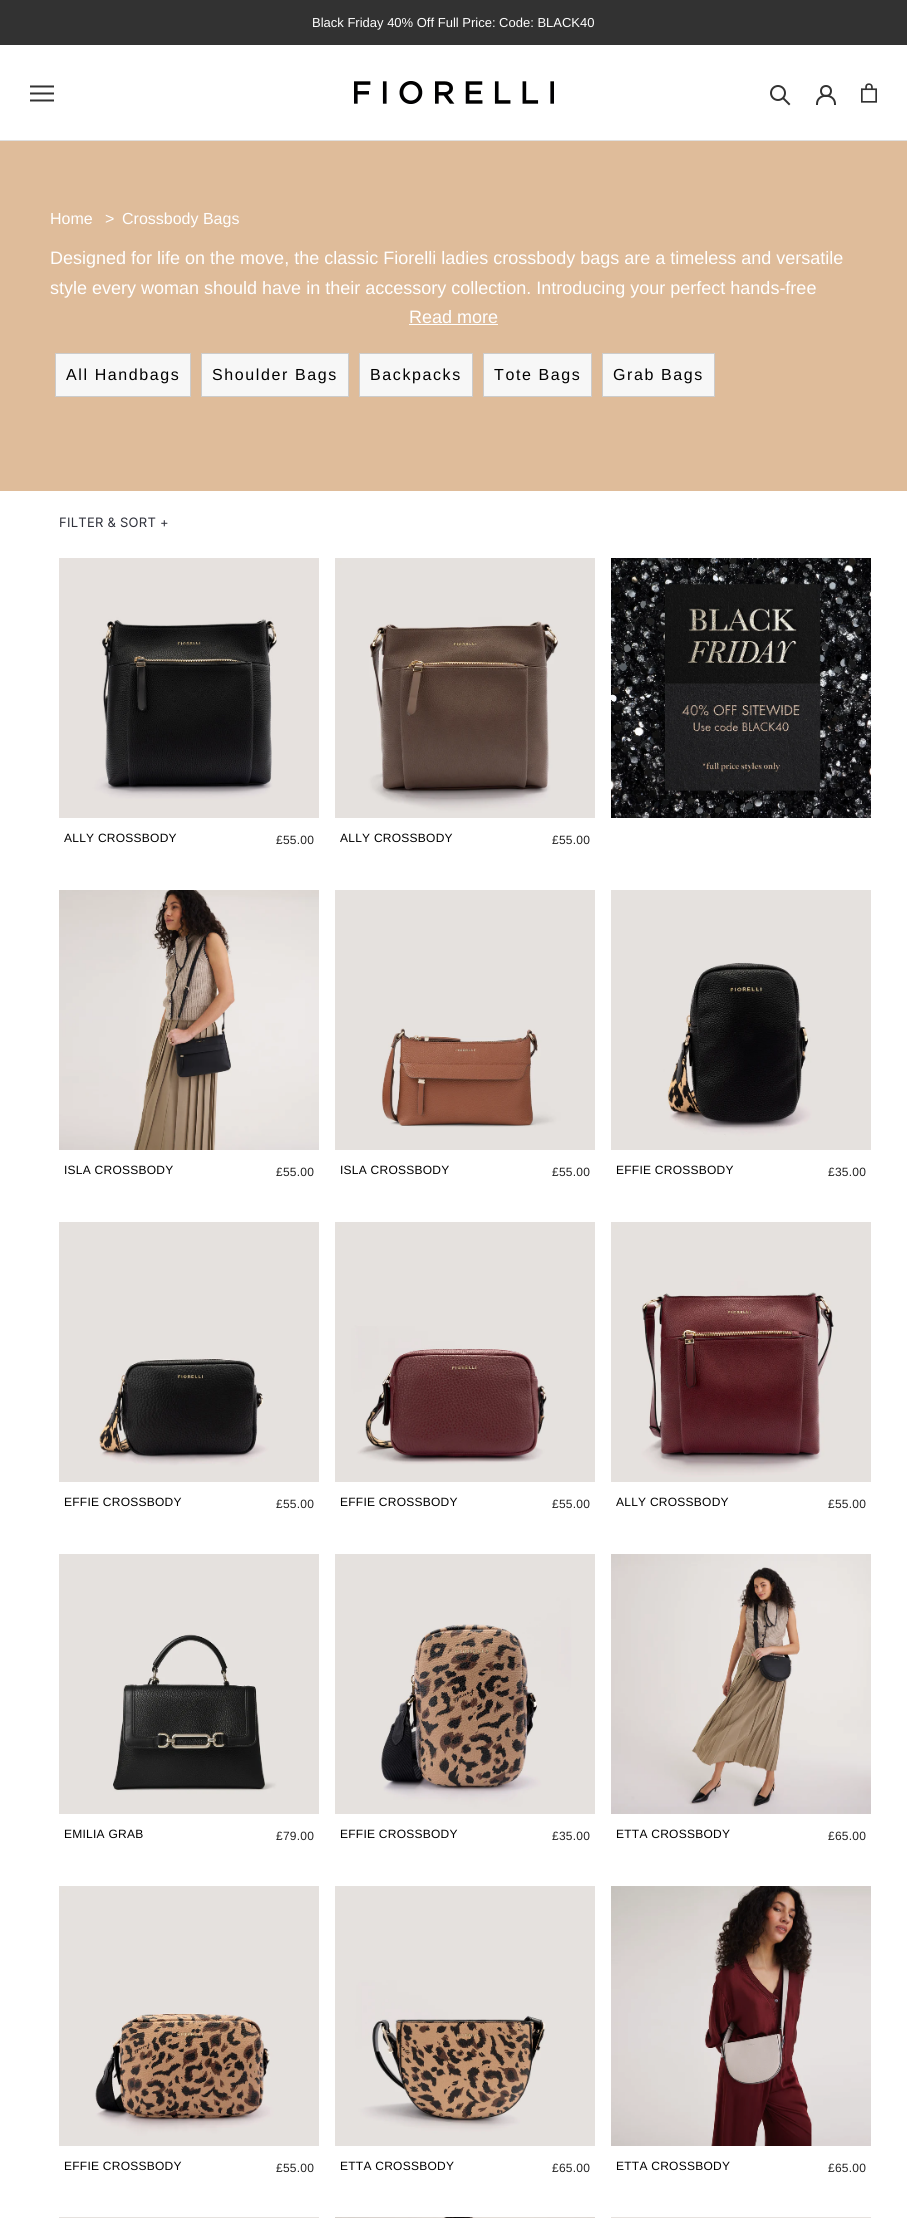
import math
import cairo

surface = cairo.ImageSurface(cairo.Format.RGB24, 907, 2218)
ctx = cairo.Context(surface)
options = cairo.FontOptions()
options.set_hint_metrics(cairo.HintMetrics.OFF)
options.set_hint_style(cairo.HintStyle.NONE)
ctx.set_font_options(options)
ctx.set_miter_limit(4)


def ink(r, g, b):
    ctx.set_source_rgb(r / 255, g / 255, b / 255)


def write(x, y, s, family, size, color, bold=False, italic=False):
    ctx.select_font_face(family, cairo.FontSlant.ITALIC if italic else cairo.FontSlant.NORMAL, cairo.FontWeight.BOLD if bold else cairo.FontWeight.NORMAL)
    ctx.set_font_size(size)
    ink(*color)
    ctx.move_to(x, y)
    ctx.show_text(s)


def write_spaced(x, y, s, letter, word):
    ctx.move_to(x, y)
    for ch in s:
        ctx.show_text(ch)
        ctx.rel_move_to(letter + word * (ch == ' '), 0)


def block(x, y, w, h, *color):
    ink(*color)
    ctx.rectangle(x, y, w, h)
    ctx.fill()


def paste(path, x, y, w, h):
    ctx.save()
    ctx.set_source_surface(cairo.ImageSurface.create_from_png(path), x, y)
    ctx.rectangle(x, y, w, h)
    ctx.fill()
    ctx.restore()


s1 = dict(family="Liberation Sans", size=13, color=(255, 255, 255))
s2 = dict(family="Liberation Sans", size=16, color=(255, 255, 255))
s3 = dict(family="Liberation Sans", size=18, color=(255, 255, 255))

ink(255, 255, 255)
ctx.paint()
block(0, 0, 907, 45, 50, 50, 50)
write(312, 27, "Black Friday 40% Off Full Price: Code: BLACK40", **s1)
block(0, 140, 907, 1, 224, 224, 224)
paste("pic1.png", 30, 85, 24, 17)
paste("pic2.png", 354, 81, 200, 23)
ctx.new_path()
ctx.move_to(789, 104)
ctx.line_to(783.5, 98.5)
ink(50, 50, 50)
ctx.set_line_cap(cairo.LineCap.SQUARE)
ctx.stroke()
ctx.arc(778, 93, 7, 0, 2 * math.pi)
ctx.set_line_cap(cairo.LineCap.BUTT)
ctx.stroke()
ctx.new_path()
ctx.move_to(817, 104)
ctx.curve_to(817, 93, 835, 93, 835, 104)
ctx.set_line_cap(cairo.LineCap.SQUARE)
ctx.stroke()
ctx.arc(826, 91, 5, 0, 2 * math.pi)
ctx.set_line_cap(cairo.LineCap.BUTT)
ctx.stroke()
paste("pic3.png", 861, 83, 16, 20)
block(0, 141, 907, 350, 223, 188, 154)
write(50, 224, "Home", **s2)
write(105, 224, ">", **s2)
write(122, 224, "Crossbody Bags", **s2)
write(50, 264, "Designed for life on the move, the classic Fiorelli ladies crossbody bags are a timeless and versatile", **s3)
write(50, 294, "style every woman should have in their accessory collection. Introducing your perfect hands-free", **s3)
write(409, 323, "Read more", **s3)
block(409, 324, 89, 1, 255, 255, 255)
ink(247, 247, 247)
ctx.rectangle(55.5, 353.5, 135, 43)
ctx.fill_preserve()
ink(204, 204, 204)
ctx.set_line_width(1)
ctx.stroke()
ctx.set_font_size(16)
ink(0, 0, 0)
write_spaced(66, 380, "All Handbags", 1.6, 0)
ink(247, 247, 247)
ctx.rectangle(201.5, 353.5, 147, 43)
ctx.fill_preserve()
ink(204, 204, 204)
ctx.stroke()
ink(0, 0, 0)
write_spaced(212, 380, "Shoulder Bags", 1.6, 0)
ink(247, 247, 247)
ctx.rectangle(359.5, 353.5, 113, 43)
ctx.fill_preserve()
ink(204, 204, 204)
ctx.stroke()
ink(0, 0, 0)
write_spaced(370, 380, "Backpacks", 1.6, 0)
ink(247, 247, 247)
ctx.rectangle(483.5, 353.5, 108, 43)
ctx.fill_preserve()
ink(204, 204, 204)
ctx.stroke()
ink(0, 0, 0)
write_spaced(494, 380, "Tote Bags", 1.6, 0)
ink(247, 247, 247)
ctx.rectangle(602.5, 353.5, 112, 43)
ctx.fill_preserve()
ink(204, 204, 204)
ctx.stroke()
ink(0, 0, 0)
write_spaced(613, 380, "Grab Bags", 1.6, 0)
ctx.select_font_face("Inter")
ctx.set_font_size(13)
ink(49, 51, 61)
write_spaced(59, 527, "FILTER & SORT +", 0.25, 0)
paste("pic4.png", 611, 558, 260, 260)
paste("pic5.png", 59, 558, 260, 260)
ctx.select_font_face("Liberation Sans")
ctx.set_font_size(12)
ink(0, 0, 0)
write_spaced(64, 842, "ALLY CROSSBODY", 0.25, 0)
ink(34, 34, 34)
write_spaced(276, 844, "£55.00", 0.25, 0)
paste("pic6.png", 335, 558, 260, 260)
ink(0, 0, 0)
write_spaced(340, 842, "ALLY CROSSBODY", 0.25, 0)
ink(34, 34, 34)
write_spaced(552, 844, "£55.00", 0.25, 0)
paste("pic7.png", 59, 890, 260, 260)
ink(0, 0, 0)
write_spaced(64, 1174, "ISLA CROSSBODY", 0.25, 0)
ink(34, 34, 34)
write_spaced(276, 1176, "£55.00", 0.25, 0)
paste("pic8.png", 335, 890, 260, 260)
ink(0, 0, 0)
write_spaced(340, 1174, "ISLA CROSSBODY", 0.25, 0)
ink(34, 34, 34)
write_spaced(552, 1176, "£55.00", 0.25, 0)
paste("pic9.png", 611, 890, 260, 260)
ink(0, 0, 0)
write_spaced(616, 1174, "EFFIE CROSSBODY", 0.25, 0)
ink(34, 34, 34)
write_spaced(828, 1176, "£35.00", 0.25, 0)
paste("pic10.png", 59, 1222, 260, 260)
ink(0, 0, 0)
write_spaced(64, 1506, "EFFIE CROSSBODY", 0.25, 0)
ink(34, 34, 34)
write_spaced(276, 1508, "£55.00", 0.25, 0)
paste("pic11.png", 335, 1222, 260, 260)
ink(0, 0, 0)
write_spaced(340, 1506, "EFFIE CROSSBODY", 0.25, 0)
ink(34, 34, 34)
write_spaced(552, 1508, "£55.00", 0.25, 0)
paste("pic12.png", 611, 1222, 260, 260)
ink(0, 0, 0)
write_spaced(616, 1506, "ALLY CROSSBODY", 0.25, 0)
ink(34, 34, 34)
write_spaced(828, 1508, "£55.00", 0.25, 0)
paste("pic13.png", 59, 1554, 260, 260)
ink(0, 0, 0)
write_spaced(64, 1838, "EMILIA GRAB", 0.25, 0)
ink(34, 34, 34)
write_spaced(276, 1840, "£79.00", 0.25, 0)
paste("pic14.png", 335, 1554, 260, 260)
ink(0, 0, 0)
write_spaced(340, 1838, "EFFIE CROSSBODY", 0.25, 0)
ink(34, 34, 34)
write_spaced(552, 1840, "£35.00", 0.25, 0)
paste("pic15.png", 611, 1554, 260, 260)
ink(0, 0, 0)
write_spaced(616, 1838, "ETTA CROSSBODY", 0.25, 0)
ink(34, 34, 34)
write_spaced(828, 1840, "£65.00", 0.25, 0)
paste("pic16.png", 59, 1886, 260, 260)
ink(0, 0, 0)
write_spaced(64, 2170, "EFFIE CROSSBODY", 0.25, 0)
ink(34, 34, 34)
write_spaced(276, 2172, "£55.00", 0.25, 0)
paste("pic17.png", 335, 1886, 260, 260)
ink(0, 0, 0)
write_spaced(340, 2170, "ETTA CROSSBODY", 0.25, 0)
ink(34, 34, 34)
write_spaced(552, 2172, "£65.00", 0.25, 0)
paste("pic18.png", 611, 1886, 260, 260)
ink(0, 0, 0)
write_spaced(616, 2170, "ETTA CROSSBODY", 0.25, 0)
ink(34, 34, 34)
write_spaced(828, 2172, "£65.00", 0.25, 0)
block(59, 2217, 260, 1, 229, 225, 222)
paste("pic19.png", 335, 2217, 260, 1)
block(611, 2217, 260, 1, 230, 225, 222)
surface.write_to_png("screenshot.png")
